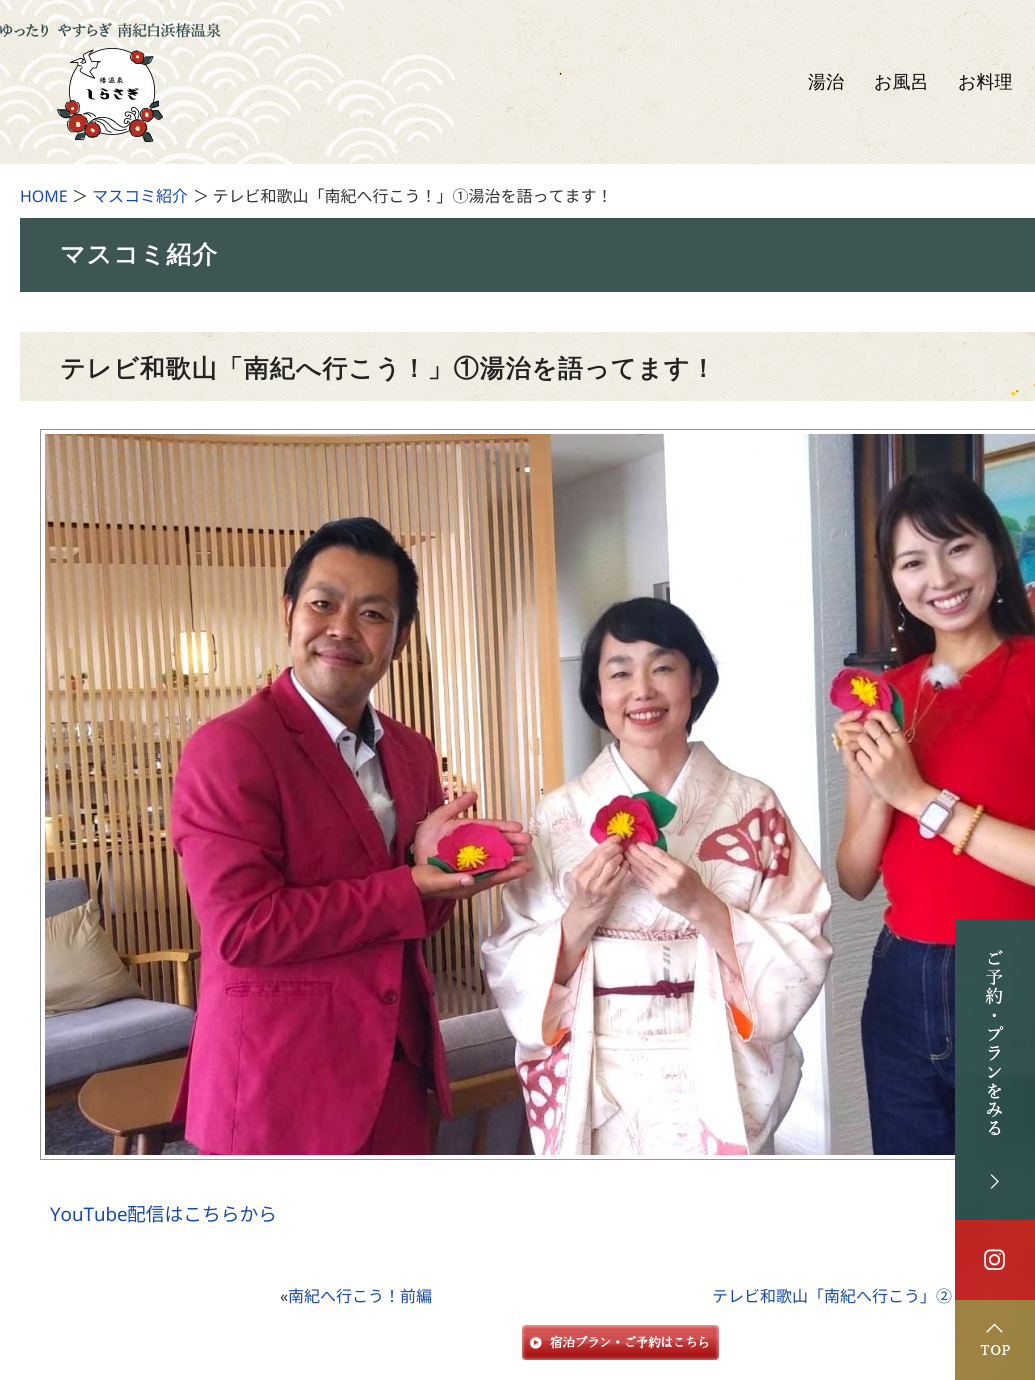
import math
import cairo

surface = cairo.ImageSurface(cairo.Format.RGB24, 1035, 1380)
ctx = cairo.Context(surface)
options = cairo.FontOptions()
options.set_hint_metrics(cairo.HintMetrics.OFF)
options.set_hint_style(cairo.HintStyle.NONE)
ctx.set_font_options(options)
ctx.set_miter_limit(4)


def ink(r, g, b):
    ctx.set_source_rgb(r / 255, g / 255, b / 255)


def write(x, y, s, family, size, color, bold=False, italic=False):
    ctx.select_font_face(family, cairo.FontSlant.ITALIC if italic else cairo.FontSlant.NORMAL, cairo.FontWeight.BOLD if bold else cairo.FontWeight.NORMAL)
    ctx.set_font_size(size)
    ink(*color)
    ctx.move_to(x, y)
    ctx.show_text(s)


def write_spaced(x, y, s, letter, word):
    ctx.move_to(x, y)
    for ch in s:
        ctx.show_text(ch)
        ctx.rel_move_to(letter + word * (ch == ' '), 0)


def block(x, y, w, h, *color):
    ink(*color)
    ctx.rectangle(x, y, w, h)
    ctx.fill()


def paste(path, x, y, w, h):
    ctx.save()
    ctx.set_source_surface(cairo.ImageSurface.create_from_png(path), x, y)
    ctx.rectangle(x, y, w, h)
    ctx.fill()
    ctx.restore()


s1 = dict(family="WenQuanYi Zen Hei Medium", size=18, color=(0, 0, 0))
s2 = dict(family="Noto Sans", size=16, color=(23, 74, 166))
s3 = dict(family="Noto Sans CJK JP", size=16, color=(51, 51, 51))
s4 = dict(family="Noto Sans CJK JP", size=16, color=(23, 74, 166))
s5 = dict(family="Noto Sans", size=18.75, color=(23, 74, 166))
s6 = dict(family="Noto Sans CJK JP", size=18.75, color=(23, 74, 166))
s7 = dict(family="Noto Sans", size=16, color=(51, 51, 51))

ink(255, 255, 255)
ctx.paint()
paste("pic1.png", 0, 0, 1035, 164)
paste("pic2.png", 0, 23, 221, 119)
write(808, 88, "湯治", **s1)
write(874, 88, "お風呂", **s1)
write(958, 88, "お料理", **s1)
ctx.rectangle(40.5, 429.5, 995, 730)
ink(149, 149, 149)
ctx.set_line_width(1)
ctx.stroke()
paste("pic7.png", 45, 434, 990, 721)
paste("pic3.png", 955, 920, 80, 300)
paste("pic4.png", 955, 1220, 80, 80)
paste("pic5.png", 955, 1300, 80, 80)
write(20, 202, "HOME", **s2)
write(72, 202, "＞", **s3)
write(92, 202, "マスコミ紹介", **s4)
write(193, 202, "＞ テレビ和歌山「南紀へ行こう！」①湯治を語ってます！", **s3)
block(20, 218, 1015, 74, 61, 85, 83)
ctx.select_font_face("WenQuanYi Zen Hei", cairo.FontSlant.NORMAL, cairo.FontWeight.BOLD)
ctx.set_font_size(25)
ink(255, 255, 255)
write_spaced(60, 263, "マスコミ紹介", 1, 0)
paste("pic6.png", 20, 332, 1015, 69)
ink(34, 34, 34)
write_spaced(60, 377, "テレビ和歌山「南紀へ行こう！」①湯治を語ってます！", 1, 0)
write(50, 1221, "YouTube", **s5)
write(127, 1221, "配信はこちらから", **s6)
write(280, 1302, "«", **s7)
write(288, 1302, "南紀へ行こう！前編", **s4)
write(712, 1302, "テレビ和歌山「南紀へ行こう」②", **s4)
paste("pic8.png", 522, 1325, 197, 35)
surface.write_to_png("screenshot.png")
